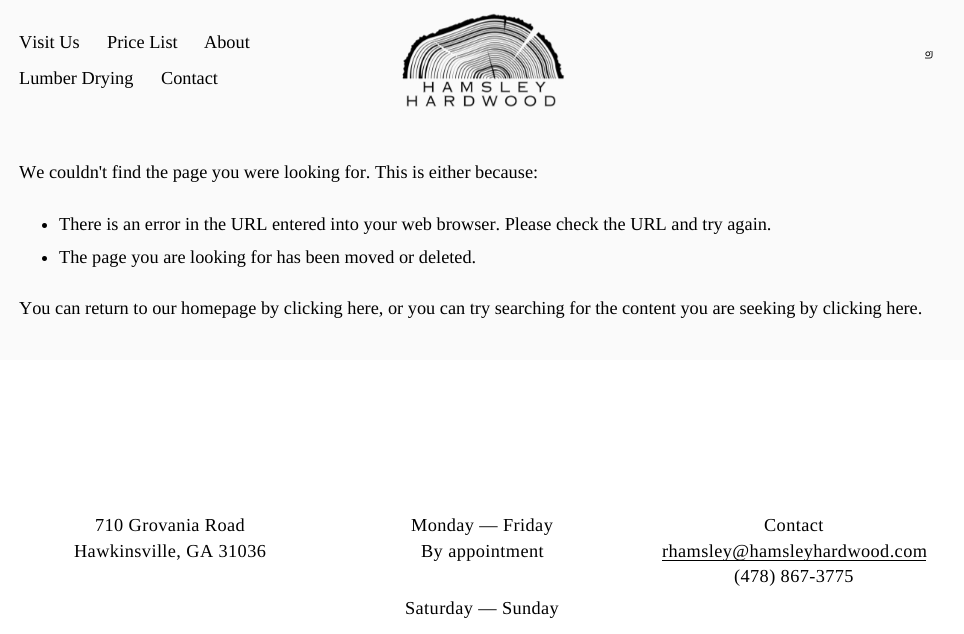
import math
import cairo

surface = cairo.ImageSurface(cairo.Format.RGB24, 964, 634)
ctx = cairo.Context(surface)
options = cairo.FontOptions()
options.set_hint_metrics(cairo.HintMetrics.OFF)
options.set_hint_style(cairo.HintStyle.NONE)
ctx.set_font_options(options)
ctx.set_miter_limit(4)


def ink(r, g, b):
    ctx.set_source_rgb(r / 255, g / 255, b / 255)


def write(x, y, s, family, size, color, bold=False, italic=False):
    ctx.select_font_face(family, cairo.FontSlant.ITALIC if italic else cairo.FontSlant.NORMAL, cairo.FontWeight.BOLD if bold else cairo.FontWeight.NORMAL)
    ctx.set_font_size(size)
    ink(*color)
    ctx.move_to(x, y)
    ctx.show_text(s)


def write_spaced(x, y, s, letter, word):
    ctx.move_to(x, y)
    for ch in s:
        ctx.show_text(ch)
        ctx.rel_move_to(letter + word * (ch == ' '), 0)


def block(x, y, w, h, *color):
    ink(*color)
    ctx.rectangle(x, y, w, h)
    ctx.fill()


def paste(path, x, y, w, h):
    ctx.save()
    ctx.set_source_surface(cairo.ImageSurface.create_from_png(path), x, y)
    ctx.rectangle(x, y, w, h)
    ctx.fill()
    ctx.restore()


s1 = dict(family="Liberation Serif", size=18.3, color=(0, 0, 0))

ink(250, 250, 250)
ctx.paint()
write(19, 48, "Visit Us", **s1)
write(107, 48, "Price List", **s1)
write(204, 48, "About", **s1)
write(19, 84, "Lumber Drying", **s1)
write(161, 84, "Contact", **s1)
paste("pic1.png", 402, 13, 163, 94)
paste("pic2.png", 925, 51, 8, 8)
write(19, 178, "We couldn't find the page you were looking for. This is either because:", **s1)
ctx.new_path()
ctx.arc(44.5, 225.5, 2.5, 0, 2 * math.pi)
ctx.fill()
write(59, 230, "There is an error in the URL entered into your web browser. Please check the URL and try again.", **s1)
ctx.new_path()
ctx.arc(44.5, 258.5, 2.5, 0, 2 * math.pi)
ctx.fill()
write(59, 263, "The page you are looking for has been moved or deleted.", **s1)
write(19, 314, "You can return to our homepage by clicking here, or you can try searching for the", **s1)
write(622, 314, "content you are seeking by clicking here.", **s1)
block(0, 360, 964, 274, 255, 255, 255)
ink(0, 0, 0)
write_spaced(95, 531, "710 Grovania Road", 0.4, 0)
write_spaced(74, 557, "Hawkinsville, GA 31036", 0.4, 0)
write_spaced(411, 531, "Monday — Friday", 0.4, 0)
write_spaced(421, 557, "By appointment", 0.4, 0)
write_spaced(405, 614, "Saturday — Sunday", 0.4, 0)
write_spaced(764, 531, "Contact", 0.4, 0)
block(662, 560, 264, 1, 0, 0, 0)
write_spaced(662, 557, "rhamsley@hamsleyhardwood.com", 0.4, 0)
write_spaced(734, 582, "(478) 867-3775", 0.4, 0)
surface.write_to_png("screenshot.png")
